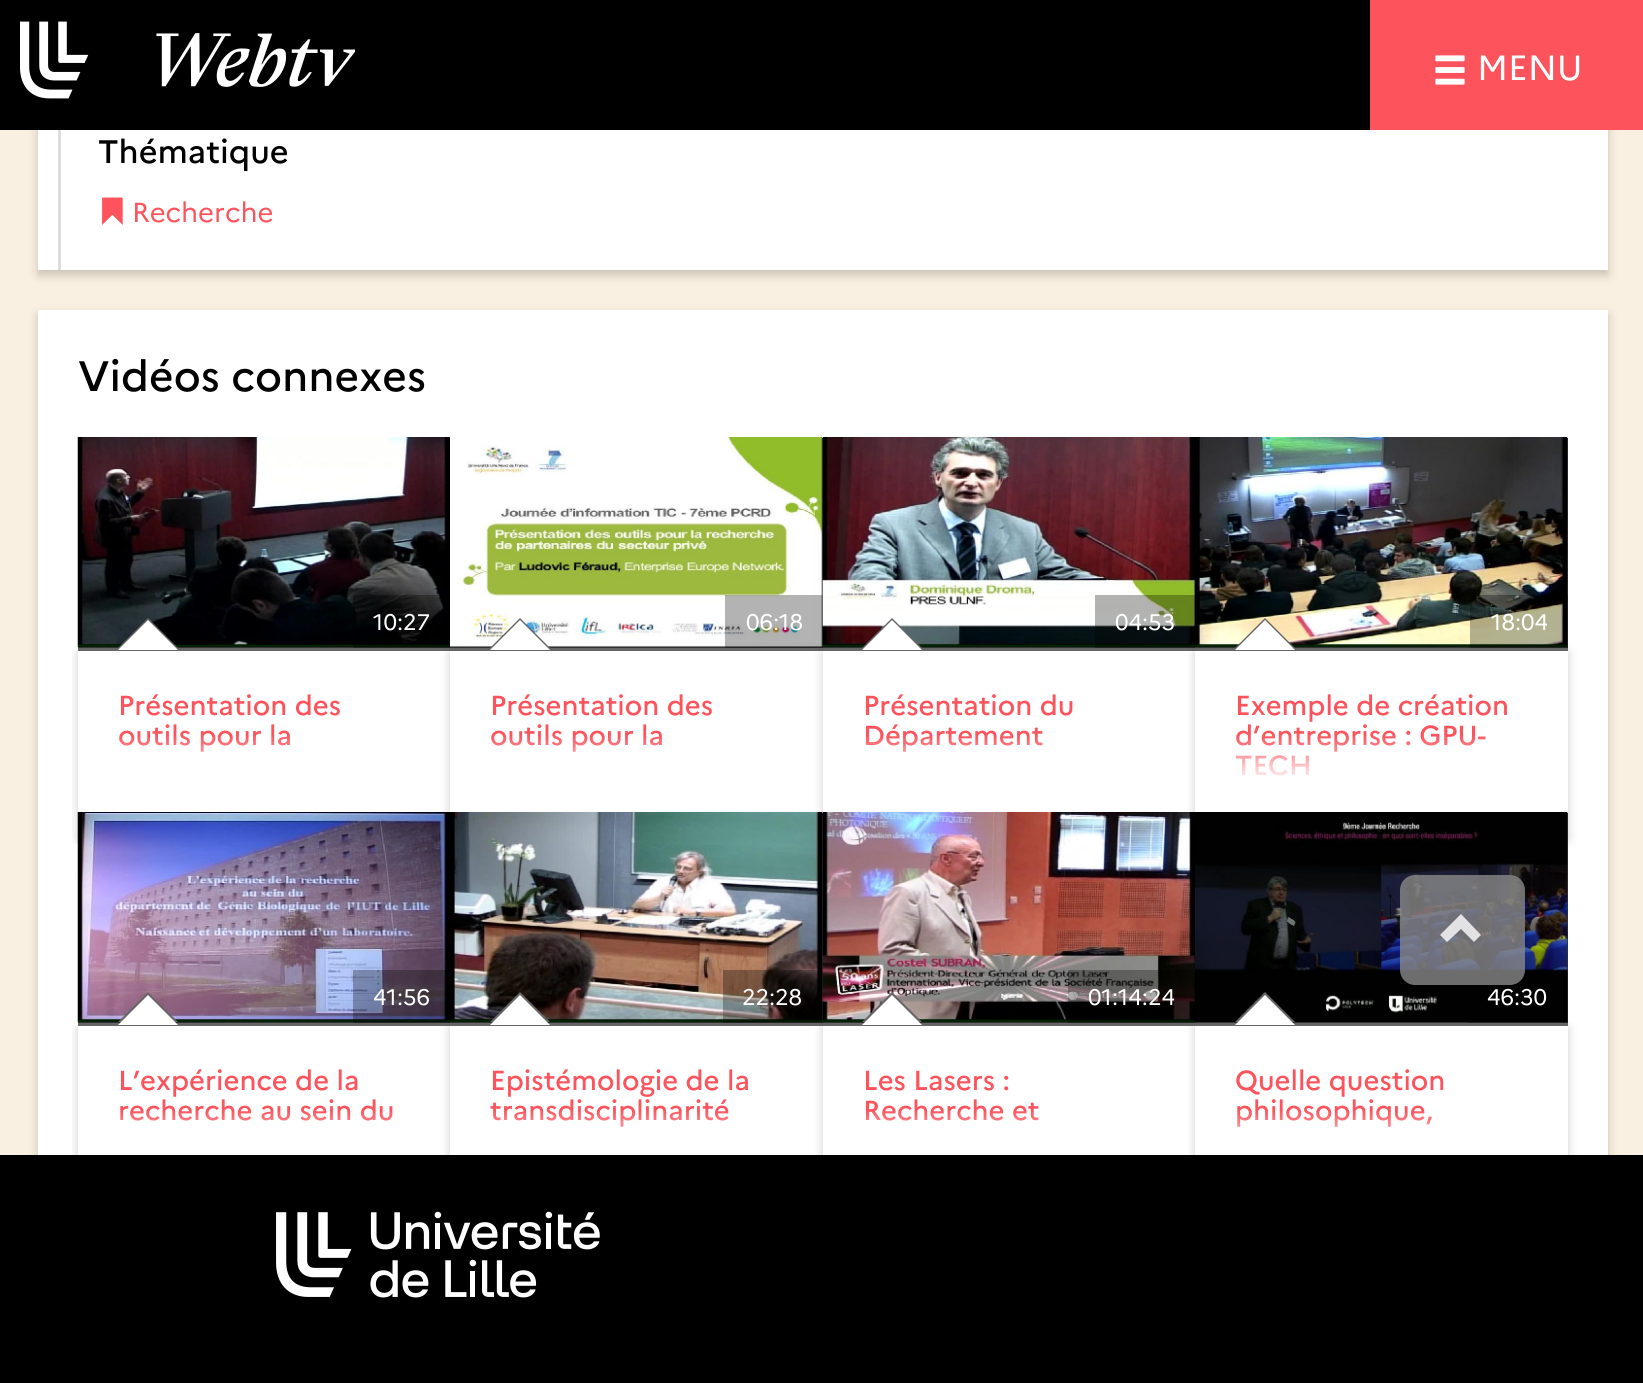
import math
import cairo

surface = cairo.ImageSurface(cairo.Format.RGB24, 1643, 1383)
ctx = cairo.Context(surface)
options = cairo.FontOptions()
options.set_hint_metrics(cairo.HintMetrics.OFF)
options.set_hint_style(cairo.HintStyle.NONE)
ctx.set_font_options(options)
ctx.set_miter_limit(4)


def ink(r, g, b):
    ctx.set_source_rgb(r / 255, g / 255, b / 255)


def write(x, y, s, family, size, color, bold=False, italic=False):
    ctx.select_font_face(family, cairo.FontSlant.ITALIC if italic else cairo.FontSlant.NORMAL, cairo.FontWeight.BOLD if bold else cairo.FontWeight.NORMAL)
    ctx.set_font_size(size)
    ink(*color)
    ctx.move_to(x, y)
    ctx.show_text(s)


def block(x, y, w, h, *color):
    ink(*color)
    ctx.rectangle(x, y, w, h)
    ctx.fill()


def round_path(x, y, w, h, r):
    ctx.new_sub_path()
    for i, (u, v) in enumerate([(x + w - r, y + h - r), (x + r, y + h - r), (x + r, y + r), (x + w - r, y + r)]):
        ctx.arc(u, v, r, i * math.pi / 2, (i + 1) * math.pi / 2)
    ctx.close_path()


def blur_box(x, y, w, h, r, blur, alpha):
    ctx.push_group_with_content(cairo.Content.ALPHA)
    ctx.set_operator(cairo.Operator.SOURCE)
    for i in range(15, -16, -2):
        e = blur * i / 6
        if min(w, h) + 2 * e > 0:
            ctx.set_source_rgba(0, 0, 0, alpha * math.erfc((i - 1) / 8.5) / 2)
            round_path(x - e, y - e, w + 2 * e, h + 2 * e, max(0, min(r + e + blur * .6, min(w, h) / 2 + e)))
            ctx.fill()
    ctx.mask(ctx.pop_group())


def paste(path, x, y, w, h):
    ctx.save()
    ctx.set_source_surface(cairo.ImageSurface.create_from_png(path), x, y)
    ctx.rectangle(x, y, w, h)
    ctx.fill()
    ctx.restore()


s1 = dict(family="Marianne", size=35, color=(255, 255, 255))
s2 = dict(family="Marianne Medium", size=32.5, color=(0, 0, 0))
s3 = dict(family="Marianne", size=27.5, color=(252, 83, 92))
s4 = dict(family="Marianne Medium", size=42.5, color=(0, 0, 0))
s5 = dict(family="Marianne", size=22.5, color=(255, 255, 255))
s6 = dict(family="Marianne Medium", size=27.5, color=(252, 83, 92))

ink(250, 240, 225)
ctx.paint()
ink(0, 0, 0)
blur_box(38, -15, 1570, 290, 0, 5, 0.2)
block(0, 0, 1370, 130, 0, 0, 0)
paste("pic1.png", 20, 21, 335, 78)
block(1370, 0, 273, 130, 252, 83, 92)
paste("pic2.png", 1435, 55, 30, 30)
write(1477, 80, "MENU", **s1)
block(38, 130, 1570, 140, 255, 255, 255)
block(58, 130, 3, 140, 221, 221, 221)
write(98, 163, "Thématique", **s2)
paste("pic3.png", 102, 197, 21, 28)
write(132, 222, "Recherche", **s3)
ink(0, 0, 0)
blur_box(38, 315, 1570, 918, 0, 5, 0.2)
block(38, 310, 1570, 845, 255, 255, 255)
write(78, 391, "Vidéos connexes", **s4)
block(78, 647, 372, 1, 51, 51, 51)
paste("pic4.png", 77, 437, 373, 210)
ctx.set_source_rgba(0, 0, 0, 0.3)
ctx.rectangle(353, 595, 97, 53)
ctx.fill()
write(373, 630, "10:27", **s5)
ctx.save()
ctx.rectangle(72, 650, 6, 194)
ctx.clip()
ink(0, 0, 0)
blur_box(78, 653, 372, 187, 0, 5, 0.2)
ctx.restore()
block(78, 648, 372, 3, 102, 102, 102)
ctx.new_path()
ctx.move_to(178, 648)
ctx.line_to(118, 648)
ctx.line_to(148, 618)
ctx.close_path()
ctx.fill()
ink(255, 255, 255)
ctx.new_path()
ctx.move_to(178, 650)
ctx.line_to(118, 650)
ctx.line_to(148, 620)
ctx.close_path()
ctx.fill()
write(118, 715, "Présentation des", **s6)
write(118, 745, "outils pour la", **s6)
gradient = cairo.LinearGradient(264, 735, 264, 795)
gradient.add_color_stop_rgba(0, 1, 1, 1, 0)
gradient.add_color_stop_rgba(0.8, 1, 1, 1, 1)
ctx.set_source(gradient)
ctx.rectangle(118, 736, 172, 16)
ctx.fill()
block(450, 438, 373, 210, 51, 51, 51)
paste("pic5.png", 450, 437, 373, 210)
ctx.set_source_rgba(0, 0, 0, 0.3)
ctx.rectangle(725, 595, 98, 53)
ctx.fill()
write(746, 630, "06:18", **s5)
ink(0, 0, 0)
blur_box(450, 653, 373, 187, 0, 5, 0.2)
block(450, 651, 373, 162, 255, 255, 255)
block(450, 648, 373, 3, 102, 102, 102)
ctx.new_path()
ctx.move_to(550, 648)
ctx.line_to(490, 648)
ctx.line_to(520, 618)
ctx.close_path()
ctx.fill()
ink(255, 255, 255)
ctx.new_path()
ctx.move_to(550, 650)
ctx.line_to(490, 650)
ctx.line_to(520, 620)
ctx.close_path()
ctx.fill()
write(490, 715, "Présentation des", **s6)
write(490, 745, "outils pour la", **s6)
gradient = cairo.LinearGradient(636, 735, 636, 795)
gradient.add_color_stop_rgba(0, 1, 1, 1, 0)
gradient.add_color_stop_rgba(0.8, 1, 1, 1, 1)
ctx.set_source(gradient)
ctx.rectangle(491, 736, 171, 16)
ctx.fill()
block(823, 647, 372, 1, 51, 51, 51)
paste("pic6.png", 822, 437, 373, 210)
ctx.set_source_rgba(0, 0, 0, 0.3)
ctx.rectangle(1095, 595, 100, 53)
ctx.fill()
write(1115, 630, "04:53", **s5)
ink(0, 0, 0)
blur_box(823, 653, 372, 187, 0, 5, 0.2)
block(823, 651, 372, 161, 255, 255, 255)
block(823, 648, 372, 3, 102, 102, 102)
ctx.new_path()
ctx.move_to(922, 648)
ctx.line_to(862, 648)
ctx.line_to(892, 618)
ctx.close_path()
ctx.fill()
ink(255, 255, 255)
ctx.new_path()
ctx.move_to(922, 650)
ctx.line_to(862, 650)
ctx.line_to(892, 620)
ctx.close_path()
ctx.fill()
write(863, 715, "Présentation du", **s6)
write(863, 745, "Département", **s6)
gradient = cairo.LinearGradient(1009, 735, 1009, 795)
gradient.add_color_stop_rgba(0, 1, 1, 1, 0)
gradient.add_color_stop_rgba(0.8, 1, 1, 1, 1)
ctx.set_source(gradient)
ctx.rectangle(865, 736, 177, 16)
ctx.fill()
block(1195, 438, 373, 210, 51, 51, 51)
paste("pic7.png", 1195, 437, 373, 210)
ctx.set_source_rgba(0, 0, 0, 0.3)
ctx.rectangle(1470, 595, 98, 53)
ctx.fill()
write(1491, 630, "18:04", **s5)
ink(0, 0, 0)
blur_box(1195, 653, 373, 187, 0, 5, 0.2)
block(1195, 651, 373, 162, 255, 255, 255)
block(1195, 648, 373, 3, 102, 102, 102)
ctx.new_path()
ctx.move_to(1295, 648)
ctx.line_to(1235, 648)
ctx.line_to(1265, 618)
ctx.close_path()
ctx.fill()
ink(255, 255, 255)
ctx.new_path()
ctx.move_to(1295, 650)
ctx.line_to(1235, 650)
ctx.line_to(1265, 620)
ctx.close_path()
ctx.fill()
write(1235, 715, "Exemple de création", **s6)
write(1235, 745, "d’entreprise : GPU-", **s6)
write(1235, 775, "TECH", **s6)
gradient = cairo.LinearGradient(1381, 735, 1381, 795)
gradient.add_color_stop_rgba(0, 1, 1, 1, 0)
gradient.add_color_stop_rgba(0.8, 1, 1, 1, 1)
ctx.set_source(gradient)
ctx.rectangle(1235, 736, 251, 40)
ctx.fill()
block(78, 1022, 372, 1, 51, 51, 51)
paste("pic8.png", 77, 812, 373, 210)
ctx.set_source_rgba(0, 0, 0, 0.3)
ctx.rectangle(353, 970, 97, 53)
ctx.fill()
write(373, 1005, "41:56", **s5)
ctx.save()
ctx.rectangle(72, 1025, 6, 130)
ctx.clip()
ink(0, 0, 0)
blur_box(78, 1028, 372, 187, 0, 5, 0.2)
ctx.restore()
block(78, 1023, 372, 3, 102, 102, 102)
ctx.new_path()
ctx.move_to(178, 1022)
ctx.line_to(118, 1022)
ctx.line_to(148, 992)
ctx.close_path()
ctx.fill()
ink(255, 255, 255)
ctx.new_path()
ctx.move_to(178, 1025)
ctx.line_to(118, 1025)
ctx.line_to(148, 995)
ctx.close_path()
ctx.fill()
write(118, 1090, "L’expérience de la", **s6)
write(118, 1120, "recherche au sein du", **s6)
gradient = cairo.LinearGradient(264, 1110, 264, 1170)
gradient.add_color_stop_rgba(0, 1, 1, 1, 0)
gradient.add_color_stop_rgba(0.8, 1, 1, 1, 1)
ctx.set_source(gradient)
ctx.rectangle(119, 1111, 273, 10)
ctx.fill()
block(450, 813, 373, 210, 51, 51, 51)
paste("pic9.png", 450, 812, 373, 210)
ctx.set_source_rgba(0, 0, 0, 0.3)
ctx.rectangle(723, 970, 100, 53)
ctx.fill()
write(742, 1005, "22:28", **s5)
ink(0, 0, 0)
blur_box(450, 1028, 373, 187, 0, 5, 0.2)
block(450, 1026, 373, 129, 255, 255, 255)
block(450, 1023, 373, 3, 102, 102, 102)
ctx.new_path()
ctx.move_to(550, 1022)
ctx.line_to(490, 1022)
ctx.line_to(520, 992)
ctx.close_path()
ctx.fill()
ink(255, 255, 255)
ctx.new_path()
ctx.move_to(550, 1025)
ctx.line_to(490, 1025)
ctx.line_to(520, 995)
ctx.close_path()
ctx.fill()
write(490, 1090, "Epistémologie de la", **s6)
write(490, 1120, "transdisciplinarité", **s6)
gradient = cairo.LinearGradient(636, 1110, 636, 1170)
gradient.add_color_stop_rgba(0, 1, 1, 1, 0)
gradient.add_color_stop_rgba(0.8, 1, 1, 1, 1)
ctx.set_source(gradient)
ctx.rectangle(493, 1111, 236, 16)
ctx.fill()
block(823, 1022, 372, 1, 51, 51, 51)
paste("pic10.png", 822, 812, 373, 210)
ctx.set_source_rgba(0, 0, 0, 0.3)
ctx.rectangle(1068, 970, 127, 53)
ctx.fill()
write(1088, 1005, "01:14:24", **s5)
ink(0, 0, 0)
blur_box(823, 1028, 372, 187, 0, 5, 0.2)
block(823, 1026, 372, 129, 255, 255, 255)
block(823, 1023, 372, 3, 102, 102, 102)
ctx.new_path()
ctx.move_to(922, 1022)
ctx.line_to(862, 1022)
ctx.line_to(892, 992)
ctx.close_path()
ctx.fill()
ink(255, 255, 255)
ctx.new_path()
ctx.move_to(922, 1025)
ctx.line_to(862, 1025)
ctx.line_to(892, 995)
ctx.close_path()
ctx.fill()
write(863, 1090, "Les Lasers :", **s6)
write(863, 1120, "Recherche et", **s6)
gradient = cairo.LinearGradient(1009, 1110, 1009, 1170)
gradient.add_color_stop_rgba(0, 1, 1, 1, 0)
gradient.add_color_stop_rgba(0.8, 1, 1, 1, 1)
ctx.set_source(gradient)
ctx.rectangle(865, 1111, 173, 10)
ctx.fill()
block(1195, 813, 373, 210, 51, 51, 51)
paste("pic11.png", 1195, 812, 373, 210)
ctx.set_source_rgba(0, 0, 0, 0.3)
ctx.rectangle(1468, 970, 100, 53)
ctx.fill()
write(1487, 1005, "46:30", **s5)
ink(0, 0, 0)
blur_box(1195, 1028, 373, 187, 0, 5, 0.2)
block(1195, 1026, 373, 129, 255, 255, 255)
block(1195, 1023, 373, 3, 102, 102, 102)
ctx.new_path()
ctx.move_to(1295, 1022)
ctx.line_to(1235, 1022)
ctx.line_to(1265, 992)
ctx.close_path()
ctx.fill()
ink(255, 255, 255)
ctx.new_path()
ctx.move_to(1295, 1025)
ctx.line_to(1235, 1025)
ctx.line_to(1265, 995)
ctx.close_path()
ctx.fill()
write(1235, 1090, "Quelle question", **s6)
write(1235, 1120, "philosophique,", **s6)
gradient = cairo.LinearGradient(1381, 1110, 1381, 1170)
gradient.add_color_stop_rgba(0, 1, 1, 1, 0)
gradient.add_color_stop_rgba(0.8, 1, 1, 1, 1)
ctx.set_source(gradient)
ctx.rectangle(1237, 1111, 195, 16)
ctx.fill()
ctx.set_source_rgba(0.533, 0.533, 0.533, 0.8)
round_path(1400, 875, 125, 110, 15)
ctx.fill()
ctx.set_source_rgba(1, 1, 1, 0.8)
ctx.new_path()
ctx.move_to(1481, 935)
ctx.line_to(1474, 942)
ctx.line_to(1461, 929)
ctx.line_to(1447, 942)
ctx.line_to(1440, 935)
ctx.line_to(1461, 914)
ctx.close_path()
ctx.fill()
block(0, 1155, 1643, 228, 0, 0, 0)
paste("pic12.png", 276, 1211, 324, 87)
surface.write_to_png("screenshot.png")
